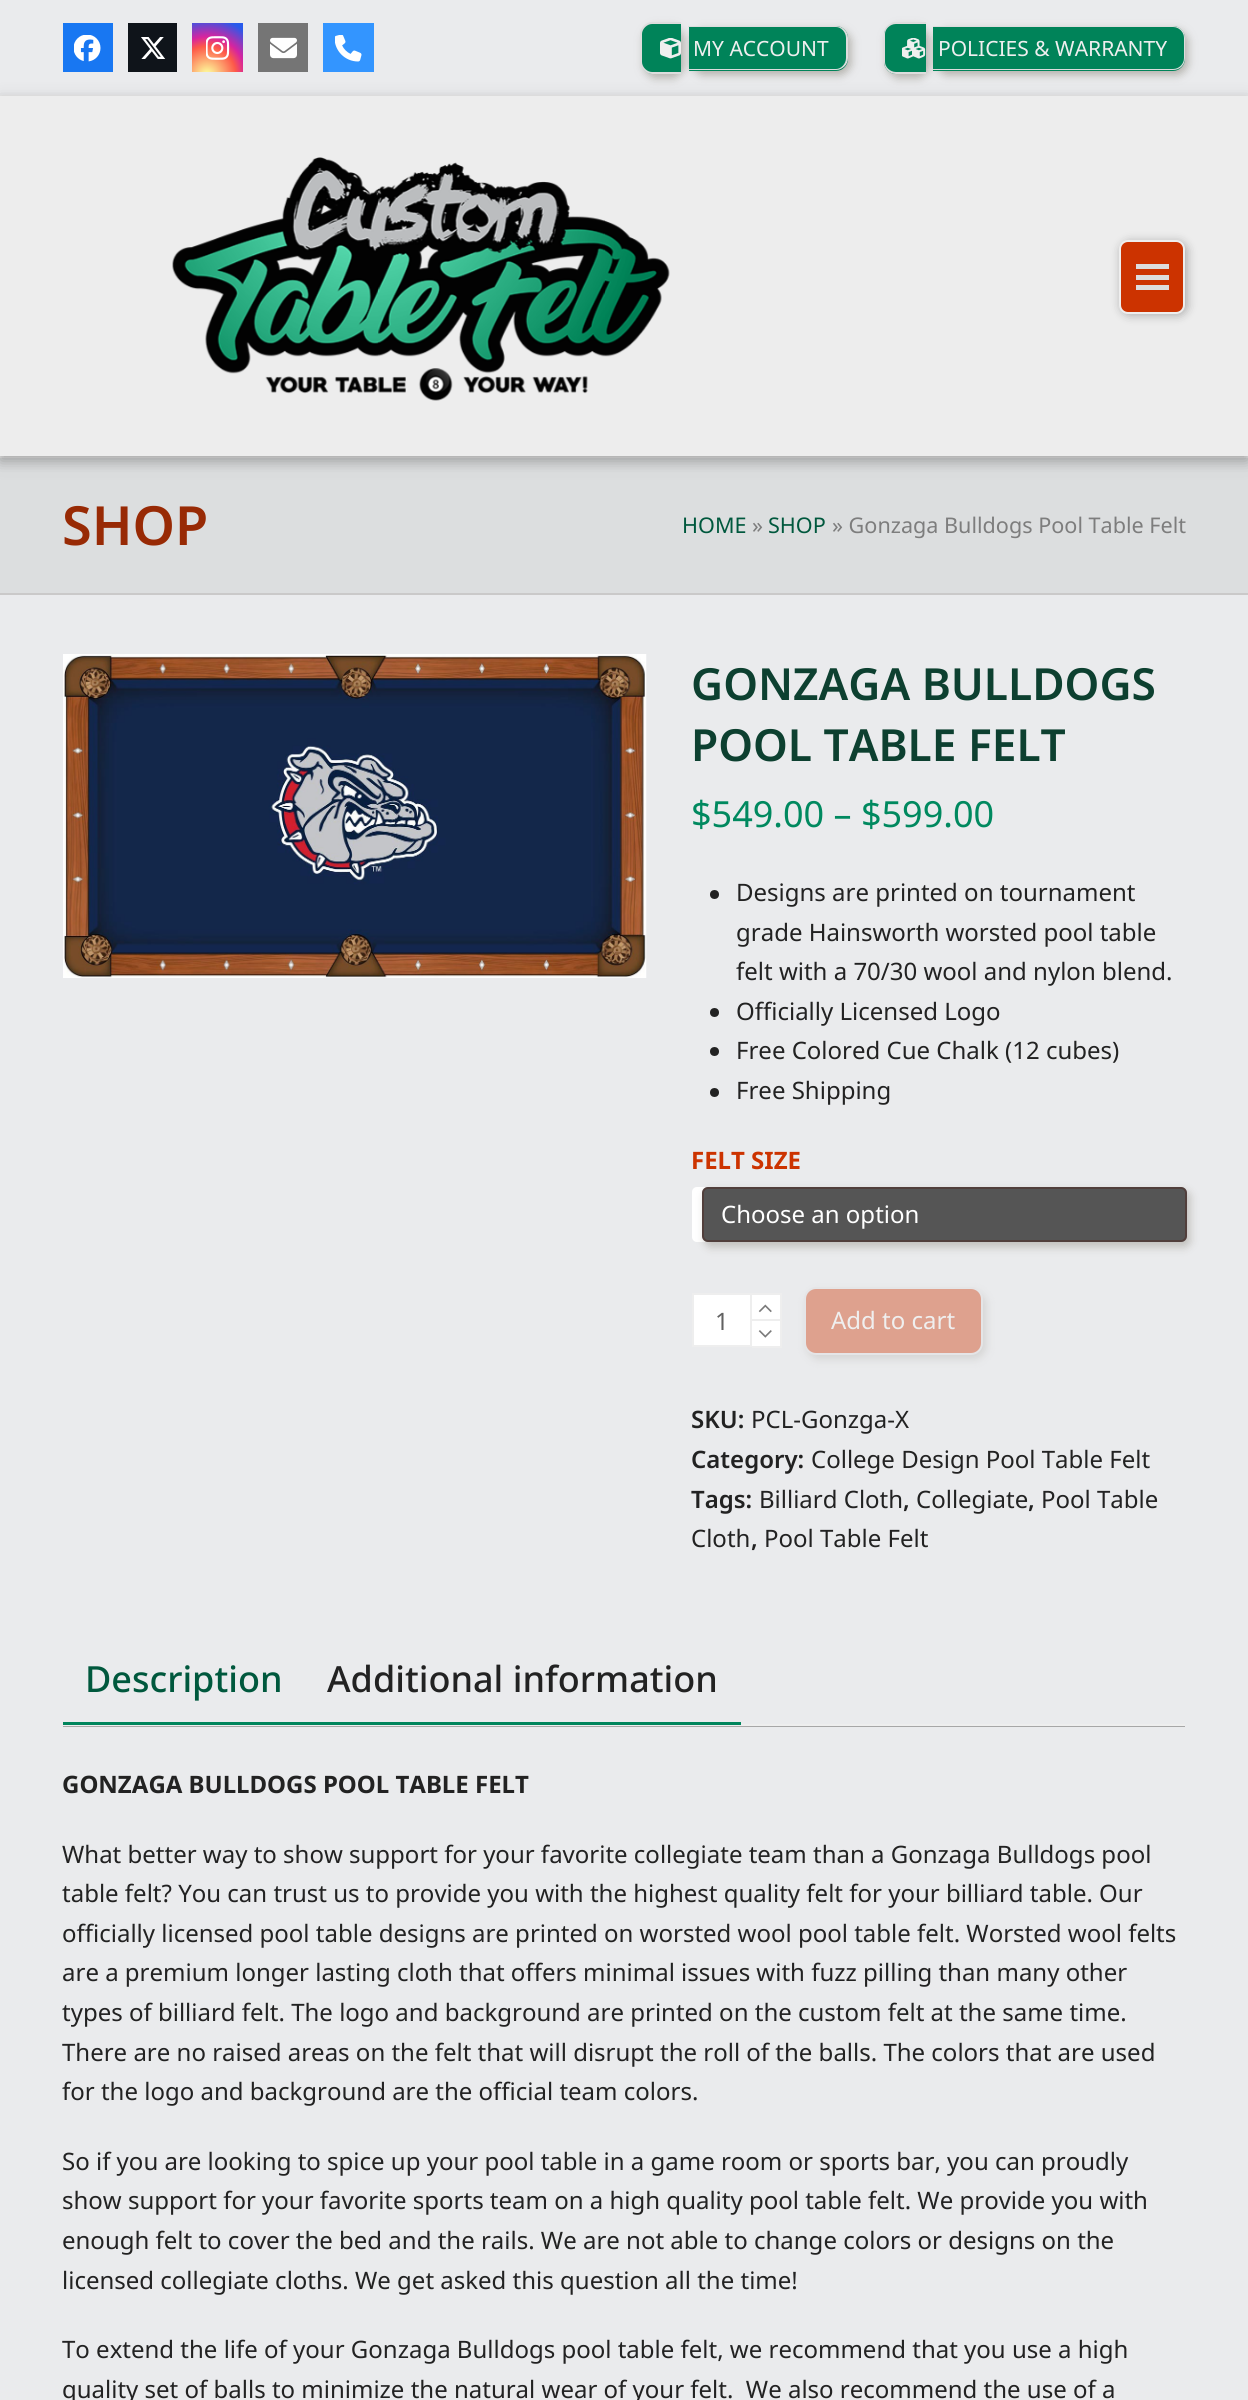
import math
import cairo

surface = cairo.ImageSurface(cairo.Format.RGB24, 1248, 2400)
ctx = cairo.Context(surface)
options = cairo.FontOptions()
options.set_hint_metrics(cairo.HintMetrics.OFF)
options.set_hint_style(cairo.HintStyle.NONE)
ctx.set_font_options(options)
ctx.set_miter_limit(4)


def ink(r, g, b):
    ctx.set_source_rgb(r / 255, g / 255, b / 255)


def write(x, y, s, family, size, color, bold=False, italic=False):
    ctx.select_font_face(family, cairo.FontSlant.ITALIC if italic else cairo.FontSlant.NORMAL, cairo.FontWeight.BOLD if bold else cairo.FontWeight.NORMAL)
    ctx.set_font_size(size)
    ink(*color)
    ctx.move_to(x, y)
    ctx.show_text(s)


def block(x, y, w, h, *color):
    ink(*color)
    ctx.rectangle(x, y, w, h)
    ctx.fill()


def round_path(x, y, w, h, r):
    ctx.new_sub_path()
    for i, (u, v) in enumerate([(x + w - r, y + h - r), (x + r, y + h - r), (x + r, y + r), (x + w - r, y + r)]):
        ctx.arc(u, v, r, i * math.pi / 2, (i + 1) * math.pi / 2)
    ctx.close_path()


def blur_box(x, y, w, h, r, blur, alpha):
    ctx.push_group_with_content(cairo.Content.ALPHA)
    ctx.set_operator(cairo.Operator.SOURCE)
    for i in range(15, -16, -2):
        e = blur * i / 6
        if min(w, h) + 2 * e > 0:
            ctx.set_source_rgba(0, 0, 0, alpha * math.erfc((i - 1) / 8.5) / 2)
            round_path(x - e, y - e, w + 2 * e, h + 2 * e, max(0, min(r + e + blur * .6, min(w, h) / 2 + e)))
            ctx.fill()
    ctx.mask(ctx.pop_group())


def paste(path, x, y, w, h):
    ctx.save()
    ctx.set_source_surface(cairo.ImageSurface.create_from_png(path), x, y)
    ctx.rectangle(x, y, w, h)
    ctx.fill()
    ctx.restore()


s1 = dict(family="Noto Sans", size=21, color=(239, 239, 239))
s2 = dict(family="Noto Sans SemiBold", size=54, color=(152, 42, 5))
s3 = dict(family="Noto Sans", size=21.6, color=(0, 88, 61))
s4 = dict(family="Noto Sans", size=21.6, color=(125, 125, 125))
s5 = dict(family="Noto Sans SemiBold", size=44.25, color=(13, 64, 48))
s6 = dict(family="Noto Sans", size=36, color=(0, 137, 95))
s7 = dict(family="Noto Sans", size=24, color=(34, 34, 34))
s8 = dict(family="Noto Sans", size=24, color=(204, 51, 0), bold=True)
s9 = dict(family="Noto Sans", size=24, color=(255, 255, 255))
s10 = dict(family="Noto Sans", size=24, color=(97, 97, 97))
s11 = dict(family="Noto Sans", size=24, color=(239, 239, 239))
s12 = dict(family="Noto Sans SemiBold", size=24, color=(34, 34, 34))
s13 = dict(family="Noto Sans Medium", size=36, color=(0, 88, 61))
s14 = dict(family="Noto Sans Medium", size=36, color=(34, 34, 34))
s15 = dict(family="Noto Sans", size=24, color=(34, 34, 34), bold=True)

ink(234, 235, 237)
ctx.paint()
block(0, 95, 1248, 1, 238, 238, 238)
block(63, 23, 50, 49, 24, 119, 242)
paste("pic1.png", 74, 35, 27, 27)
block(128, 23, 49, 49, 15, 20, 26)
paste("pic2.png", 141, 37, 25, 22)
gradient = cairo.RadialGradient(207, 75, 0, 207, 75, 64)
gradient.add_color_stop_rgba(0, 0.992, 0.957, 0.592, 1)
gradient.add_color_stop_rgba(0.05, 0.992, 0.957, 0.592, 1)
gradient.add_color_stop_rgba(0.45, 0.992, 0.349, 0.286, 1)
gradient.add_color_stop_rgba(0.6, 0.839, 0.141, 0.624, 1)
gradient.add_color_stop_rgba(0.9, 0.157, 0.353, 0.922, 1)
ctx.set_source(gradient)
ctx.rectangle(192, 23, 51, 49)
ctx.fill()
paste("pic3.png", 206, 36, 24, 24)
block(258, 23, 50, 49, 117, 117, 117)
paste("pic4.png", 270, 37, 27, 22)
block(323, 23, 51, 49, 51, 149, 255)
paste("pic5.png", 335, 35, 27, 27)
ink(96, 89, 72)
blur_box(644, 27, 40, 51, 12, 4.5, 0.4)
ink(0, 131, 89)
ctx.new_path()
ctx.move_to(653, 23)
ctx.line_to(681, 23)
ctx.line_to(681, 74)
ctx.line_to(653, 74)
ctx.curve_to(646.5, 74, 641, 68.5, 641, 62)
ctx.line_to(641, 35)
ctx.curve_to(641, 28.5, 646.5, 23, 653, 23)
ctx.close_path()
ctx.fill()
ink(221, 221, 221)
ctx.set_fill_rule(cairo.FillRule.EVEN_ODD)
ctx.new_path()
ctx.move_to(652, 22)
ctx.line_to(681, 22)
ctx.line_to(681, 74)
ctx.line_to(652, 74)
ctx.curve_to(646, 74, 640, 68, 640, 62)
ctx.line_to(640, 34)
ctx.curve_to(640, 28, 646, 22, 652, 22)
ctx.close_path()
ctx.move_to(652, 24)
ctx.line_to(681, 24)
ctx.line_to(681, 72)
ctx.line_to(652, 72)
ctx.curve_to(647, 72, 642, 67, 642, 62)
ctx.line_to(642, 34)
ctx.curve_to(642, 29, 647, 24, 652, 24)
ctx.close_path()
ctx.fill()
ink(96, 89, 72)
blur_box(692, 30, 159, 45, 12, 4.5, 0.4)
ink(0, 131, 89)
ctx.new_path()
ctx.move_to(689, 26)
ctx.line_to(836, 26)
ctx.curve_to(842.5, 26, 848, 31.5, 848, 38)
ctx.line_to(848, 59)
ctx.curve_to(848, 65.5, 842.5, 71, 836, 71)
ctx.line_to(689, 71)
ctx.close_path()
ctx.fill()
ink(221, 221, 221)
ctx.new_path()
ctx.move_to(688, 26)
ctx.line_to(836, 26)
ctx.curve_to(842, 26, 848, 31, 848, 38)
ctx.line_to(848, 58)
ctx.curve_to(848, 65, 842, 70, 836, 70)
ctx.line_to(688, 70)
ctx.close_path()
ctx.move_to(688, 27)
ctx.line_to(836, 27)
ctx.curve_to(841, 27, 846, 32, 846, 38)
ctx.line_to(846, 58)
ctx.curve_to(846, 64, 841, 69, 836, 69)
ctx.line_to(688, 69)
ctx.close_path()
ctx.fill()
paste("pic6.png", 660, 38, 21, 21)
write(693, 56, "MY ACCOUNT", **s1)
ink(96, 89, 72)
blur_box(887, 27, 42, 51, 12, 4.5, 0.4)
ink(0, 131, 89)
ctx.new_path()
ctx.move_to(896, 23)
ctx.line_to(926, 23)
ctx.line_to(926, 74)
ctx.line_to(896, 74)
ctx.curve_to(889.5, 74, 884, 68.5, 884, 62)
ctx.line_to(884, 35)
ctx.curve_to(884, 28.5, 889.5, 23, 896, 23)
ctx.close_path()
ctx.fill()
ink(221, 221, 221)
ctx.new_path()
ctx.move_to(896, 22)
ctx.line_to(926, 22)
ctx.line_to(926, 74)
ctx.line_to(896, 74)
ctx.curve_to(889, 74, 884, 68, 884, 62)
ctx.line_to(884, 34)
ctx.curve_to(884, 28, 889, 22, 896, 22)
ctx.close_path()
ctx.move_to(896, 24)
ctx.line_to(926, 24)
ctx.line_to(926, 72)
ctx.line_to(896, 72)
ctx.curve_to(890, 72, 885, 67, 885, 62)
ctx.line_to(885, 34)
ctx.curve_to(885, 29, 890, 24, 896, 24)
ctx.close_path()
ctx.fill()
ink(96, 89, 72)
blur_box(936, 30, 252, 45, 12, 4.5, 0.4)
ink(0, 131, 89)
ctx.new_path()
ctx.move_to(933, 26)
ctx.line_to(1173, 26)
ctx.curve_to(1179.5, 26, 1185, 31.5, 1185, 38)
ctx.line_to(1185, 59)
ctx.curve_to(1185, 65.5, 1179.5, 71, 1173, 71)
ctx.line_to(933, 71)
ctx.close_path()
ctx.fill()
ink(221, 221, 221)
ctx.new_path()
ctx.move_to(933, 26)
ctx.line_to(1173, 26)
ctx.curve_to(1180, 26, 1185, 31, 1185, 38)
ctx.line_to(1185, 58)
ctx.curve_to(1185, 65, 1180, 70, 1173, 70)
ctx.line_to(933, 70)
ctx.close_path()
ctx.move_to(933, 27)
ctx.line_to(1173, 27)
ctx.curve_to(1179, 27, 1184, 32, 1184, 38)
ctx.line_to(1184, 58)
ctx.curve_to(1184, 64, 1179, 69, 1173, 69)
ctx.line_to(933, 69)
ctx.close_path()
ctx.fill()
paste("pic7.png", 902, 38, 24, 21)
write(938, 56, "POLICIES & WARRANTY", **s1)
block(0, 458, 1248, 135, 220, 222, 223)
block(0, 456, 1248, 2, 238, 238, 238)
ink(51, 51, 51)
blur_box(0, 101, 1248, 360, 0, 7.5, 0.4)
block(0, 96, 1248, 360, 237, 237, 237)
paste("pic8.png", 172, 157, 498, 244)
ink(0, 0, 0)
blur_box(1121, 242, 66, 73, 9, 5, 0.3)
ink(204, 51, 0)
round_path(1120, 241, 64, 72, 8)
ctx.fill_preserve()
ink(238, 238, 238)
ctx.stroke()
block(1136, 275, 33, 5, 221, 221, 221)
block(1136, 264, 33, 5, 221, 221, 221)
block(1136, 285, 33, 5, 221, 221, 221)
block(0, 593, 1248, 2, 202, 201, 201)
write(62, 545, "SHOP", **s2)
write(682, 533, "HOME", **s3)
write(752, 533, "»", **s4)
write(768, 533, "SHOP", **s3)
write(832, 533, "» Gonzaga Bulldogs Pool Table Felt", **s4)
paste("pic9.png", 63, 654, 584, 324)
write(691, 700, "GONZAGA BULLDOGS", **s5)
write(691, 761, "POOL TABLE FELT", **s5)
write(691, 827, "$549.00 – $599.00", **s6)
ink(34, 34, 34)
ctx.new_path()
ctx.arc(714.5, 894.5, 4.5, 0, 2 * math.pi)
ctx.fill()
write(736, 901, "Designs are printed on tournament", **s7)
write(736, 941, "grade Hainsworth worsted pool table", **s7)
write(736, 980, "felt with a 70/30 wool and nylon blend.", **s7)
ctx.new_path()
ctx.arc(714.5, 1012.5, 4.5, 0, 2 * math.pi)
ctx.fill()
write(736, 1020, "Officially Licensed Logo", **s7)
ctx.new_path()
ctx.arc(714.5, 1051.5, 4.5, 0, 2 * math.pi)
ctx.fill()
write(736, 1059, "Free Colored Cue Chalk (12 cubes)", **s7)
ctx.new_path()
ctx.arc(714.5, 1092.5, 4.5, 0, 2 * math.pi)
ctx.fill()
write(736, 1099, "Free Shipping", **s7)
write(691, 1169, "FELT SIZE", **s8)
ink(255, 255, 255)
round_path(692, 1187, 484, 55, 5)
ctx.fill()
ink(96, 89, 72)
blur_box(705, 1191, 485, 56, 6, 4.5, 0.3)
ink(85, 85, 85)
round_path(702, 1187, 485, 55, 6)
ctx.fill()
round_path(703, 1188, 483, 53, 5)
ctx.set_source_rgba(0.278, 0.051, 0, 0.3)
ctx.stroke()
write(721, 1223, "Choose an option", **s9)
ctx.rectangle(693, 1294, 58, 52)
ctx.fill_preserve()
ink(238, 238, 238)
ctx.stroke()
write(715, 1330, "1", **s10)
block(752, 1293, 30, 2, 238, 238, 238)
block(780, 1293, 2, 54, 238, 238, 238)
block(752, 1346, 30, 2, 238, 238, 238)
block(752, 1295, 28, 24, 255, 255, 255)
paste("pic10.png", 758, 1304, 14, 9)
block(752, 1319, 28, 2, 238, 238, 238)
block(752, 1321, 28, 25, 255, 255, 255)
paste("pic11.png", 758, 1330, 14, 8)
ink(179, 177, 171)
blur_box(807, 1292, 179, 67, 12, 4.5, 0.4)
ink(222, 161, 142)
round_path(805, 1288, 177, 66, 11)
ctx.fill_preserve()
ink(229, 229, 231)
ctx.stroke()
write(831, 1329, "Add to cart", **s11)
write(691, 1428, "SKU:", **s12)
write(751, 1428, "PCL-Gonzga-X", **s7)
write(691, 1468, "Category:", **s12)
write(811, 1468, "College Design Pool Table Felt", **s7)
write(691, 1508, "Tags:", **s12)
write(759, 1508, "Billiard Cloth", **s7)
write(903, 1508, ",", **s12)
write(916, 1508, "Collegiate", **s7)
write(1028, 1508, ",", **s12)
write(1041, 1508, "Pool Table", **s7)
write(691, 1547, "Cloth", **s7)
write(751, 1547, ",", **s12)
write(764, 1547, "Pool Table Felt", **s7)
block(63, 1726, 1122, 1, 167, 167, 167)
block(63, 1724, 1122, 2, 238, 238, 238)
block(63, 1722, 678, 3, 0, 133, 92)
write(85, 1692, "Description", **s13)
write(327, 1692, "Additional information", **s14)
write(62, 1793, "GONZAGA BULLDOGS POOL TABLE FELT", **s15)
write(62, 1863, "What better way to show support for your favorite collegiate team than a Gonzaga Bulldogs pool", **s7)
write(62, 1902, "table felt? You can trust us to provide you with the highest quality felt for your billiard table. Our", **s7)
write(62, 1942, "officially licensed pool table designs are printed on worsted wool pool table felt. Worsted wool felts", **s7)
write(62, 1981, "are a premium longer lasting cloth that offers minimal issues with fuzz pilling than many other", **s7)
write(62, 2021, "types of billiard felt. The logo and background are printed on the custom felt at the same time.", **s7)
write(62, 2061, "There are no raised areas on the felt that will disrupt the roll of the balls. The colors that are used", **s7)
write(62, 2100, "for the logo and background are the official team colors.", **s7)
write(62, 2170, "So if you are looking to spice up your pool table in a game room or sports bar, you can proudly", **s7)
write(62, 2209, "show support for your favorite sports team on a high quality pool table felt. We provide you with", **s7)
write(62, 2249, "enough felt to cover the bed and the rails. We are not able to change colors or designs on the", **s7)
write(62, 2289, "licensed collegiate cloths. We get asked this question all the time!", **s7)
write(62, 2358, "To extend the life of your Gonzaga Bulldogs pool table felt, we recommend that you use a high", **s7)
write(62, 2398, "quality set of balls to minimize the natural wear of your felt.  We also recommend the use of a", **s7)
surface.write_to_png("screenshot.png")
